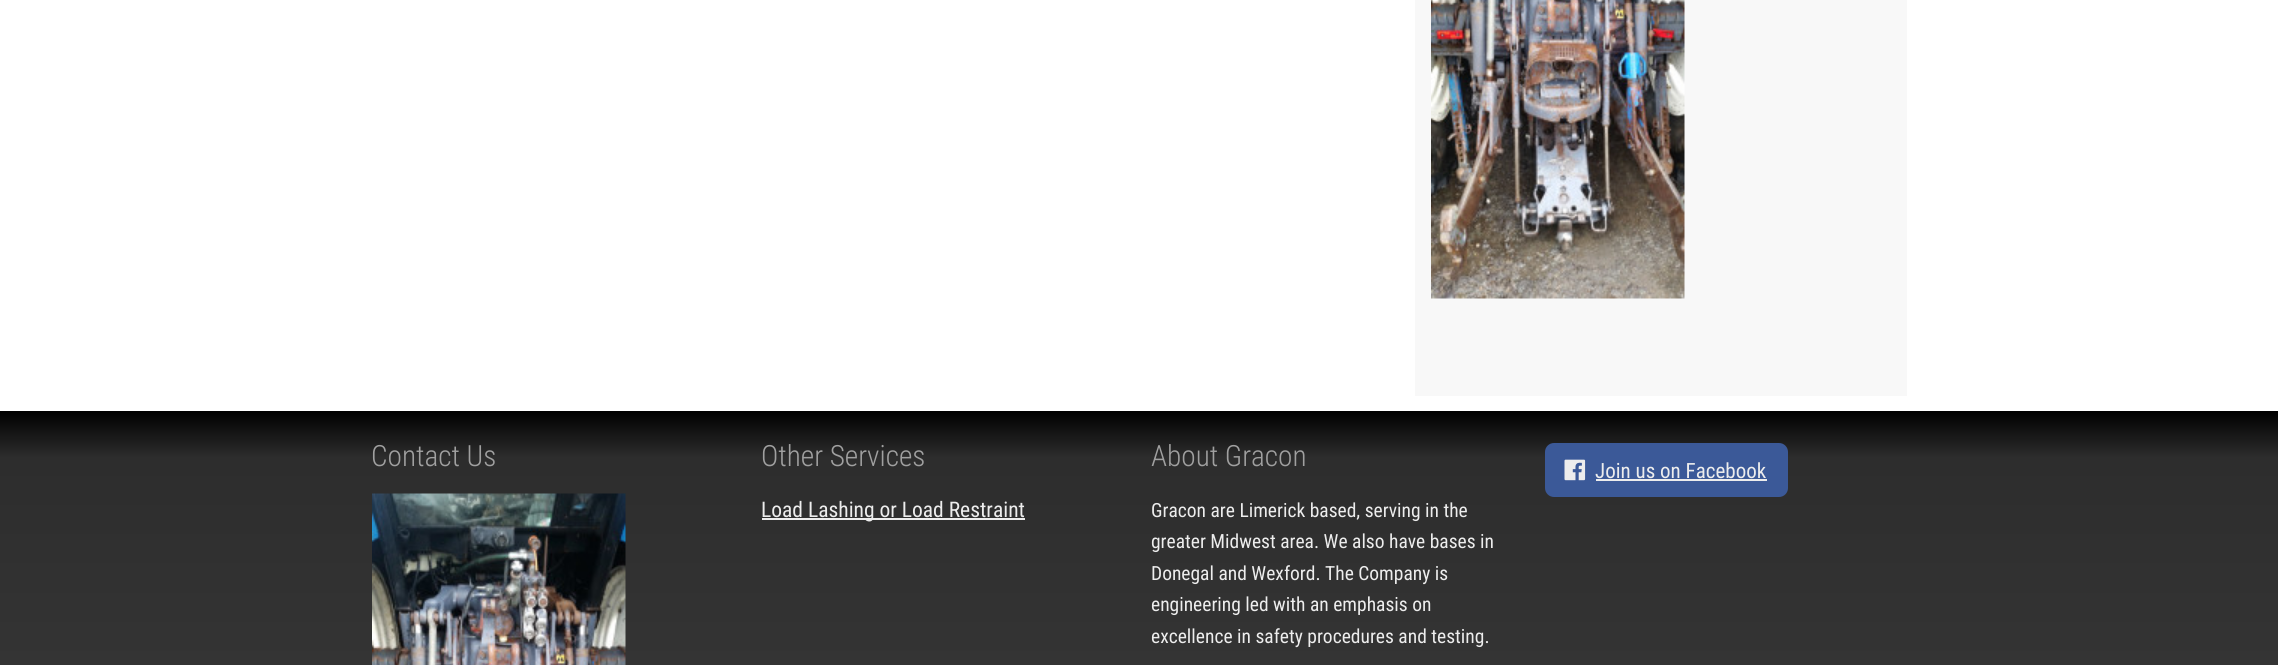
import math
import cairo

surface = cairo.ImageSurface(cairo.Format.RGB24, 2278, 665)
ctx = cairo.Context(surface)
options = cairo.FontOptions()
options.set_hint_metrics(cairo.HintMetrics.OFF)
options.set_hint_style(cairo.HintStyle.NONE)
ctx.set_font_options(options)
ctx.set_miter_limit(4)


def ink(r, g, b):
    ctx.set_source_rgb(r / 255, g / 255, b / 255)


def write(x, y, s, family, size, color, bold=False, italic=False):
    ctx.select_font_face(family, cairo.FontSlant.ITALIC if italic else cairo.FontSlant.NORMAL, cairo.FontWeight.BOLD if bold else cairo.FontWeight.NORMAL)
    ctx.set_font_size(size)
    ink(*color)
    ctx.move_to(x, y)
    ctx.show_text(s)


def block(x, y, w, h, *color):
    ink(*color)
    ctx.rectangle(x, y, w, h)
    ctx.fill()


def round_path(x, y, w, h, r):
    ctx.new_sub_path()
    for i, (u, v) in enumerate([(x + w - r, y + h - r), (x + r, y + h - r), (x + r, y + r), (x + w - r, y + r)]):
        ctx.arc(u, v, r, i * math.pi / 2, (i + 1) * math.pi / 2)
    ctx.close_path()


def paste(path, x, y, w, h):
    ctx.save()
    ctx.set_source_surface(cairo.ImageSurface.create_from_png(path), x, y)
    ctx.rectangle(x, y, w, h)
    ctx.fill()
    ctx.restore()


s1 = dict(family="Roboto Condensed Light", size=29.25, color=(160, 160, 160))
s2 = dict(family="Roboto Condensed", size=21.5, color=(237, 237, 237))
s3 = dict(family="Roboto Condensed", size=19.5, color=(237, 237, 237))
s4 = dict(family="Roboto Condensed", size=21, color=(237, 237, 237))

ink(255, 255, 255)
ctx.paint()
block(1415, 0, 492, 396, 248, 248, 248)
paste("pic1.png", 1431, 0, 254, 299)
gradient = cairo.LinearGradient(1139, 411, 1139, 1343)
gradient.add_color_stop_rgba(0, 0, 0, 0, 1)
gradient.add_color_stop_rgba(0.05, 0.176, 0.176, 0.176, 1)
gradient.add_color_stop_rgba(0.49, 0.231, 0.231, 0.231, 1)
gradient.add_color_stop_rgba(1, 0.298, 0.298, 0.298, 1)
ctx.set_source(gradient)
ctx.rectangle(0, 411, 2278, 254)
ctx.fill()
write(371, 466, "Contact Us", **s1)
paste("pic2.png", 372, 493, 254, 172)
write(761, 466, "Other Services", **s1)
block(762, 518, 263, 2, 237, 237, 237)
write(761, 517, "Load Lashing or Load Restraint", **s2)
write(1151, 466, "About Gracon", **s1)
write(1151, 517, "Gracon are Limerick based, serving in the", **s3)
write(1151, 548, "greater Midwest area. We also have bases in", **s3)
write(1151, 580, "Donegal and Wexford. The Company is", **s3)
write(1151, 611, "engineering led with an emphasis on", **s3)
write(1151, 643, "excellence in safety procedures and testing.", **s3)
ink(59, 89, 152)
round_path(1545, 443, 243, 54, 9)
ctx.fill()
paste("pic3.png", 1564, 459, 22, 22)
write(1595, 478, "Join us on Facebook", **s4)
block(1596, 479, 171, 2, 237, 237, 237)
surface.write_to_png("screenshot.png")
